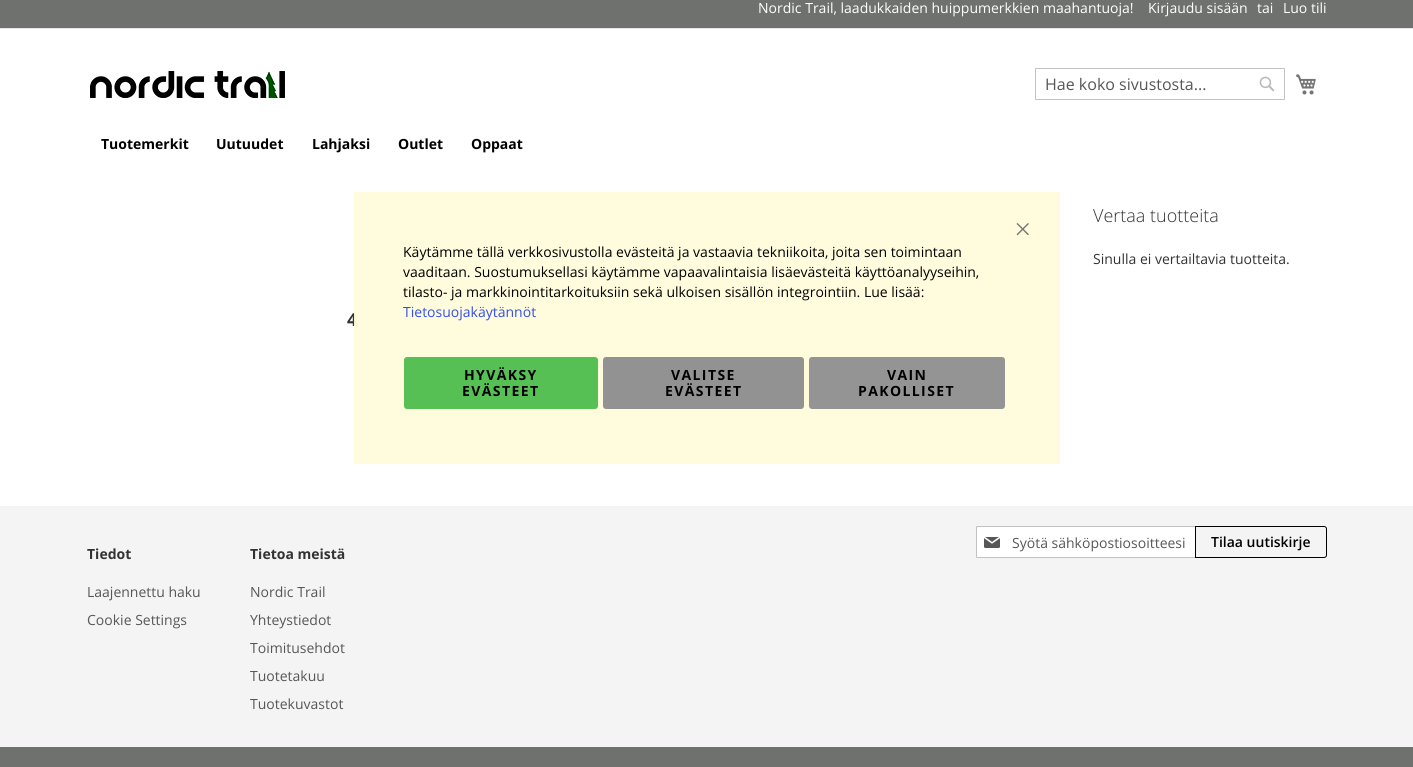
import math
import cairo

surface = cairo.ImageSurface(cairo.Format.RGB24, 1413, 767)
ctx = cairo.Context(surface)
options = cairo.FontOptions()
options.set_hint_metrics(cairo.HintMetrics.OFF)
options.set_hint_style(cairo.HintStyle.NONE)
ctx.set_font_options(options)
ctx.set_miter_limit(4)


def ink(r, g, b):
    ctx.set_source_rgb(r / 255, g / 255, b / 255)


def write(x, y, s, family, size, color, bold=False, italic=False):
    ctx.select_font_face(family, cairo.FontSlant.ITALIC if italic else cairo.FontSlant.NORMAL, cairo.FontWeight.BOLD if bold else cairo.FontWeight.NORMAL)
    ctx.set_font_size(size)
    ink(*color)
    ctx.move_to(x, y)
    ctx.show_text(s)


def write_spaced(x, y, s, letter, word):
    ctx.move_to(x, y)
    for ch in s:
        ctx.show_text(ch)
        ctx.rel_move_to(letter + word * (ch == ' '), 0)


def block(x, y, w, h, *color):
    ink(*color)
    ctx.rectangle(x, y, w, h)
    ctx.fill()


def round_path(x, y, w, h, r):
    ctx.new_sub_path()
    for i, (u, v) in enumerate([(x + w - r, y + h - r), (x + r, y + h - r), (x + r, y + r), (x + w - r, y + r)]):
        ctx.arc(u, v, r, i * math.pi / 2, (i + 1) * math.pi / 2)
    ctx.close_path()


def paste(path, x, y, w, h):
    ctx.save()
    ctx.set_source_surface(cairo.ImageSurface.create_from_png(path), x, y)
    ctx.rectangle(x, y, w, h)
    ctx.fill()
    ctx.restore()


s1 = dict(family="Open Sans", size=14, color=(255, 255, 255))
s2 = dict(family="Open Sans", size=16, color=(87, 87, 87))
s3 = dict(family="Open Sans", size=14, color=(0, 0, 0), bold=True)
s4 = dict(family="Open Sans Light", size=18, color=(51, 51, 51))
s5 = dict(family="Open Sans", size=14, color=(51, 51, 51))
s6 = dict(family="Open Sans", size=18, color=(51, 51, 51), bold=True)
s7 = dict(family="Open Sans", size=14, color=(87, 87, 87))
s8 = dict(family="Open Sans SemiBold", size=14, color=(0, 0, 0))
s9 = dict(family="Open Sans", size=14, color=(51, 51, 51), bold=True)
s10 = dict(family="Open Sans", size=14, color=(0, 0, 0))
s11 = dict(family="Open Sans", size=14, color=(51, 79, 233))

ink(255, 255, 255)
ctx.paint()
block(0, 0, 1413, 28, 110, 113, 110)
block(0, 28, 1413, 1, 232, 232, 232)
write(758, 13, "Nordic Trail, laadukkaiden huippumerkkien maahantuoja!", **s1)
write(1148, 13, "Kirjaudu sisään", **s1)
write(1257, 13, "tai", **s1)
write(1283, 13, "Luo tili", **s1)
paste("pic1.png", 90, 71, 195, 27)
round_path(1035.5, 68.5, 249, 31, 0.5)
ink(194, 194, 194)
ctx.set_line_width(1)
ctx.stroke()
write(1045, 90, "Hae koko sivustosta...", **s2)
paste("pic2.png", 1259, 76, 16, 16)
paste("pic3.png", 1296, 74, 20, 21)
write(101, 149, "Tuotemerkit", **s3)
write(216, 149, "Uutuudet", **s3)
write(312, 149, "Lahjaksi", **s3)
write(398, 149, "Outlet", **s3)
write(471, 149, "Oppaat", **s3)
write(1093, 222, "Vertaa tuotteita", **s4)
write(1093, 264, "Sinulla ei vertailtavia tuotteita.", **s5)
write(347, 326, "4", **s6)
block(0, 506, 1413, 241, 244, 244, 244)
ink(255, 255, 255)
round_path(976.5, 526.5, 219, 31, 0.5)
ctx.fill_preserve()
ink(194, 194, 194)
ctx.stroke()
paste("pic4.png", 984, 537, 16, 11)
write(1012, 548, "Syötä sähköpostiosoitteesi", **s7)
ctx.new_path()
ctx.move_to(1195.5, 526.5)
ctx.line_to(1324, 526.5)
ctx.curve_to(1325.5, 526.5, 1326.5, 527.5, 1326.5, 529)
ctx.line_to(1326.5, 555)
ctx.curve_to(1326.5, 556.5, 1325.5, 557.5, 1324, 557.5)
ctx.line_to(1195.5, 557.5)
ctx.close_path()
ink(0, 0, 0)
ctx.stroke()
write(1211, 547, "Tilaa uutiskirje", **s8)
write(87, 559, "Tiedot", **s9)
write(87, 597, "Laajennettu haku", **s7)
write(87, 625, "Cookie Settings", **s7)
write(250, 559, "Tietoa meistä", **s9)
write(250, 597, "Nordic Trail", **s7)
write(250, 625, "Yhteystiedot", **s7)
write(250, 653, "Toimitusehdot", **s7)
write(250, 681, "Tuotetakuu", **s7)
write(250, 709, "Tuotekuvastot", **s7)
block(0, 747, 1413, 20, 110, 113, 110)
ctx.set_source_rgba(1, 0.988, 0.867, 0.95)
ctx.rectangle(354, 192, 706, 272)
ctx.fill()
paste("pic5.png", 1016, 223, 13, 13)
write(403, 257, "Käytämme tällä verkkosivustolla evästeitä ja vastaavia tekniikoita, joita sen toimintaan", **s10)
write(403, 277, "vaaditaan. Suostumuksellasi käytämme vapaavalintaisia lisäevästeitä käyttöanalyyseihin,", **s10)
write(403, 297, "tilasto- ja markkinointitarkoituksiin sekä ulkoisen sisällön integrointiin. Lue lisää:", **s10)
write(403, 317, "Tietosuojakäytännöt", **s11)
ctx.set_source_rgba(0.18, 0.694, 0.2, 0.8)
round_path(404, 357, 194, 52, 3)
ctx.fill()
ctx.select_font_face("Open Sans", cairo.FontSlant.NORMAL, cairo.FontWeight.BOLD)
ink(0, 0, 0)
write_spaced(464, 380, "HYVÄKSY", 1.4, 0)
write_spaced(462, 396, "EVÄSTEET", 1.4, 0)
ink(146, 146, 146)
round_path(603, 357, 201, 52, 3)
ctx.fill()
ink(0, 0, 0)
write_spaced(671, 380, "VALITSE", 1.4, 0)
write_spaced(665, 396, "EVÄSTEET", 1.4, 0)
ink(148, 148, 148)
round_path(809, 357, 196, 52, 3)
ctx.fill()
ink(0, 0, 0)
write_spaced(887, 380, "VAIN", 1.4, 0)
write_spaced(858, 396, "PAKOLLISET", 1.4, 0)
surface.write_to_png("screenshot.png")
